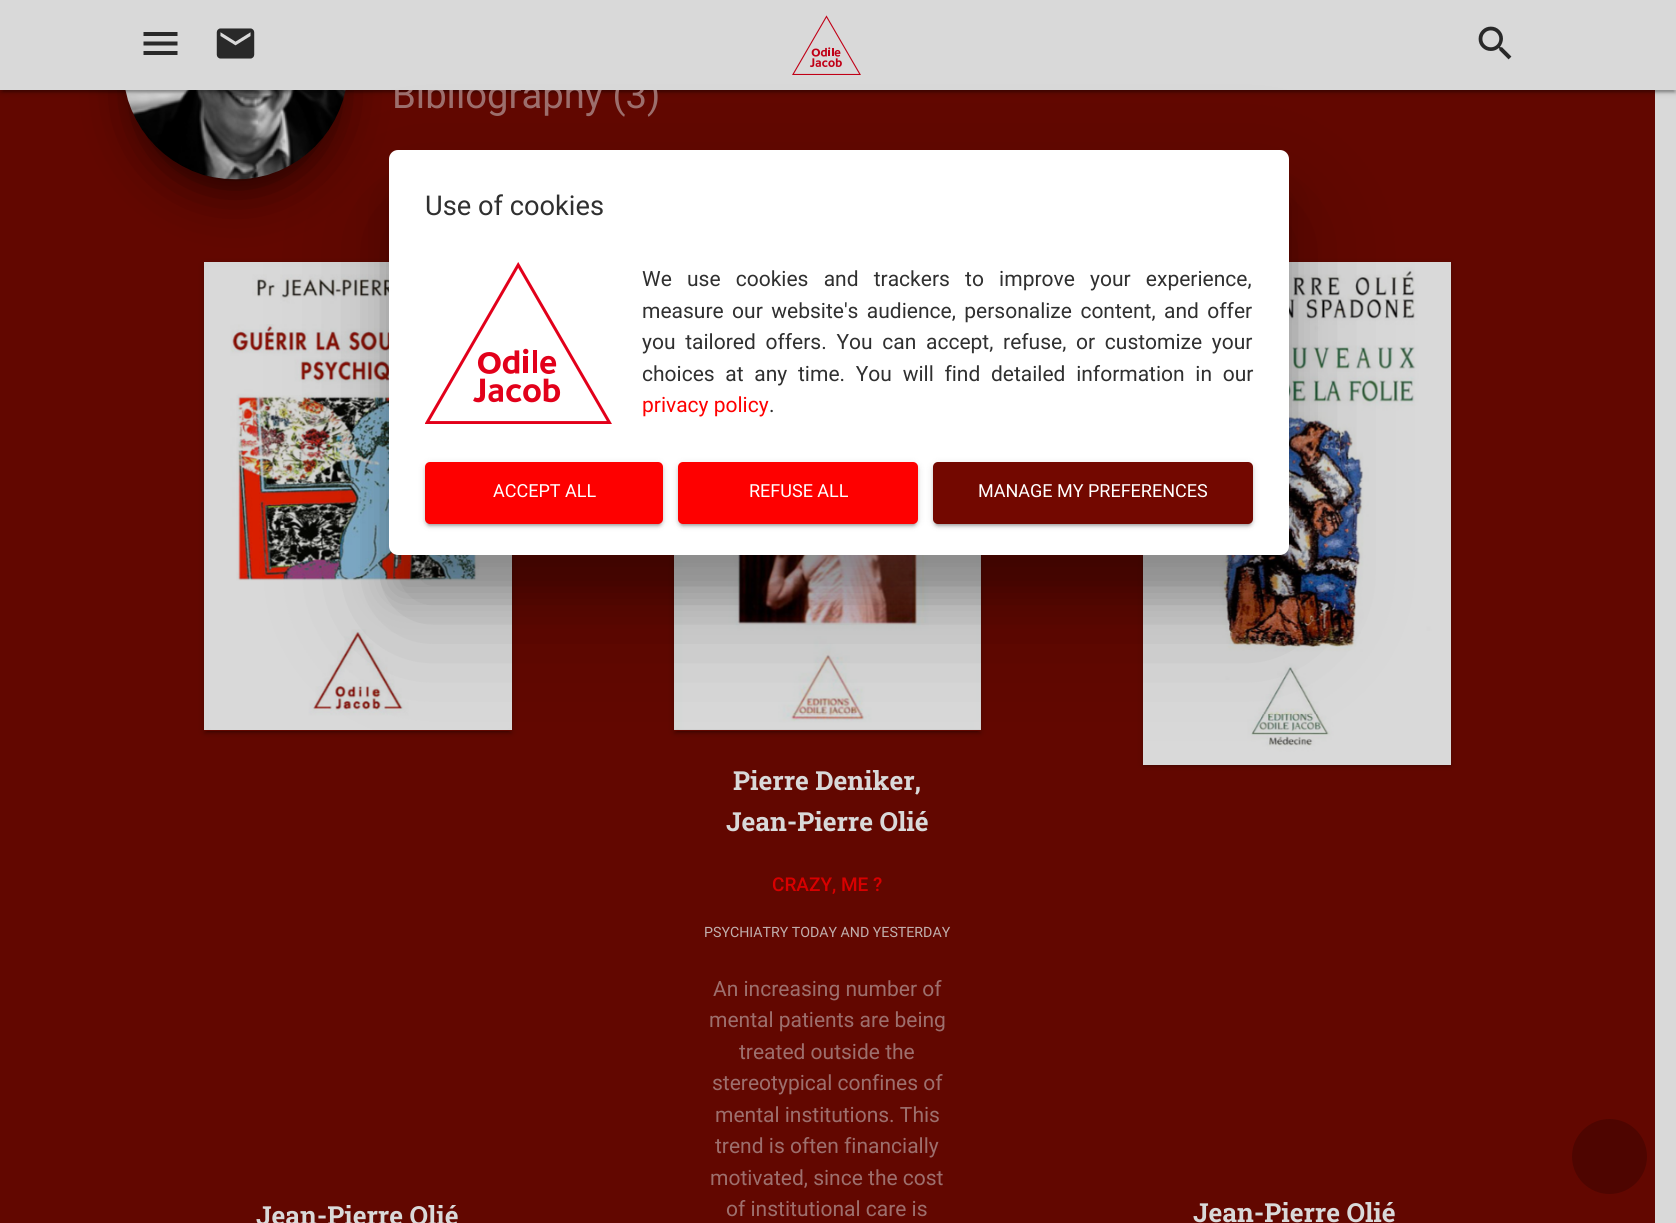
import math
import cairo

surface = cairo.ImageSurface(cairo.Format.RGB24, 1676, 1223)
ctx = cairo.Context(surface)
options = cairo.FontOptions()
options.set_hint_metrics(cairo.HintMetrics.OFF)
options.set_hint_style(cairo.HintStyle.NONE)
ctx.set_font_options(options)
ctx.set_miter_limit(4)


def ink(r, g, b):
    ctx.set_source_rgb(r / 255, g / 255, b / 255)


def write(x, y, s, family, size, color, bold=False, italic=False):
    ctx.select_font_face(family, cairo.FontSlant.ITALIC if italic else cairo.FontSlant.NORMAL, cairo.FontWeight.BOLD if bold else cairo.FontWeight.NORMAL)
    ctx.set_font_size(size)
    ink(*color)
    ctx.move_to(x, y)
    ctx.show_text(s)


def write_spaced(x, y, s, letter, word):
    ctx.move_to(x, y)
    for ch in s:
        ctx.show_text(ch)
        ctx.rel_move_to(letter + word * (ch == ' '), 0)


def block(x, y, w, h, *color):
    ink(*color)
    ctx.rectangle(x, y, w, h)
    ctx.fill()


def round_path(x, y, w, h, r):
    ctx.new_sub_path()
    for i, (u, v) in enumerate([(x + w - r, y + h - r), (x + r, y + h - r), (x + r, y + r), (x + w - r, y + r)]):
        ctx.arc(u, v, r, i * math.pi / 2, (i + 1) * math.pi / 2)
    ctx.close_path()


def blur_box(x, y, w, h, r, blur, alpha):
    ctx.push_group_with_content(cairo.Content.ALPHA)
    ctx.set_operator(cairo.Operator.SOURCE)
    for i in range(15, -16, -2):
        e = blur * i / 6
        if min(w, h) + 2 * e > 0:
            ctx.set_source_rgba(0, 0, 0, alpha * math.erfc((i - 1) / 8.5) / 2)
            round_path(x - e, y - e, w + 2 * e, h + 2 * e, max(0, min(r + e + blur * .6, min(w, h) / 2 + e)))
            ctx.fill()
    ctx.mask(ctx.pop_group())


def paste(path, x, y, w, h):
    ctx.save()
    ctx.set_source_surface(cairo.ImageSurface.create_from_png(path), x, y)
    ctx.rectangle(x, y, w, h)
    ctx.fill()
    ctx.restore()


s1 = dict(family="Roboto", size=38.25, color=(157, 111, 109))
s2 = dict(family="Roboto Slab", size=26.25, color=(217, 217, 217), bold=True)
s3 = dict(family="Roboto Medium", size=19, color=(216, 0, 0))
s4 = dict(family="Roboto", size=14.2, color=(193, 175, 173))
s5 = dict(family="Roboto", size=21, color=(157, 111, 109))
s6 = dict(family="Roboto", size=27.25, color=(48, 48, 48))
s7 = dict(family="Roboto", size=21, color=(254, 0, 0))
s8 = dict(family="Roboto", size=21, color=(48, 48, 48))
s9 = dict(family="Roboto", size=18, color=(255, 255, 255))

ink(217, 217, 217)
ctx.paint()
block(0, 90, 1655, 1133, 98, 7, 0)
ink(0, 0, 0)
blur_box(131, -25, 210, 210, 105, 7.5, 0.2)
blur_box(123, -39, 225, 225, 112.5, 19, 0.1)
blur_box(141, -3, 189, 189, 94.5, 28.5, 0.6)
paste("pic4.png", 125, 90, 221, 90)
blur_box(0, 2, 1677, 90, 0, 4, 0.12)
blur_box(3, 8, 1671, 84, 0, 1, 0.2)
blur_box(0, 3, 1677, 90, 0, 1.5, 0.14)
write(392, 108, "Bibliography (3)", **s1)
block(0, 0, 1676, 90, 217, 217, 217)
paste("pic1.png", 792, 15, 69, 60)
ink(41, 41, 41)
ctx.new_path()
ctx.move_to(143.5, 32)
ctx.line_to(177.5, 32)
ctx.line_to(177.5, 36)
ctx.line_to(143.5, 36)
ctx.close_path()
ctx.move_to(143.5, 45.5)
ctx.line_to(143.5, 41.5)
ctx.line_to(177.5, 41.5)
ctx.line_to(177.5, 45.5)
ctx.close_path()
ctx.move_to(143.5, 55)
ctx.line_to(143.5, 51)
ctx.line_to(177.5, 51)
ctx.line_to(177.5, 55)
ctx.close_path()
ctx.fill()
paste("pic2.png", 216, 28, 39, 31)
paste("pic3.png", 1478, 26, 34, 34)
ink(0, 0, 0)
blur_box(204, 264, 308, 468, 0, 4, 0.12)
blur_box(207, 270, 302, 462, 0, 1, 0.2)
blur_box(204, 266, 308, 468, 0, 1.5, 0.14)
block(204, 730, 308, 1, 98, 7, 0)
paste("pic5.png", 204, 262, 308, 468)
write(256, 1225, "Jean-Pierre Olié", **s2)
ink(0, 0, 0)
blur_box(674, 264, 307, 468, 0, 4, 0.12)
blur_box(677, 270, 301, 462, 0, 1, 0.2)
blur_box(674, 266, 307, 468, 0, 1.5, 0.14)
block(674, 730, 307, 1, 98, 7, 0)
paste("pic6.png", 674, 555, 307, 175)
write(733, 790, "Pierre Deniker,", **s2)
write(726, 831, "Jean-Pierre Olié", **s2)
write(772, 891, "CRAZY, ME ?", **s3)
write(704, 937, "PSYCHIATRY TODAY AND YESTERDAY", **s4)
write(713, 996, "An increasing number of", **s5)
write(709, 1027, "mental patients are being", **s5)
write(739, 1059, "treated outside the", **s5)
write(712, 1090, "stereotypical confines of", **s5)
write(715, 1122, "mental institutions. This", **s5)
write(715, 1153, "trend is often financially", **s5)
write(710, 1185, "motivated, since the cost", **s5)
write(726, 1216, "of institutional care is", **s5)
ink(0, 0, 0)
blur_box(1143, 264, 308, 501, 0, 4, 0.12)
blur_box(1146, 270, 302, 495, 0, 1, 0.2)
blur_box(1143, 266, 308, 501, 0, 1.5, 0.14)
paste("pic7.png", 1143, 262, 308, 503)
write(1193, 1222, "Jean-Pierre Olié", **s2)
ink(0, 0, 0)
blur_box(389, 210, 900, 405, 9, 58, 0.22)
blur_box(389, 191, 900, 405, 9, 18, 0.2)
ink(255, 255, 255)
round_path(389, 150, 900, 405, 9)
ctx.fill()
write(425, 215, "Use of cookies", **s6)
paste("pic8.png", 425, 262, 187, 162)
ctx.set_font_size(21)
write_spaced(642, 286, "We use cookies and trackers to improve your experience,", 0, 10)
write_spaced(642, 318, "measure our website's audience, personalize content, and offer", 0, 3.25)
write_spaced(642, 349, "you tailored offers. You can accept, refuse, or customize your", 0, 4.5)
write_spaced(642, 381, "choices at any time. You will find detailed information in our", 0, 5.5)
write(642, 412, "privacy policy", **s7)
write(769, 412, ".", **s8)
ink(0, 0, 0)
blur_box(425, 464, 238, 61, 5, 4, 0.12)
blur_box(428, 470, 232, 55, 1.5, 1, 0.2)
blur_box(425, 465, 238, 62, 5, 1.5, 0.14)
ink(254, 0, 0)
round_path(425, 462, 238, 62, 5)
ctx.fill()
write(493, 497, "ACCEPT ALL", **s9)
ink(0, 0, 0)
blur_box(678, 464, 240, 61, 5, 4, 0.12)
blur_box(681, 470, 234, 55, 1.5, 1, 0.2)
blur_box(678, 465, 240, 62, 5, 1.5, 0.14)
ink(254, 0, 0)
round_path(678, 462, 240, 62, 5)
ctx.fill()
write(749, 497, "REFUSE ALL", **s9)
ink(0, 0, 0)
blur_box(933, 464, 320, 61, 5, 4, 0.12)
blur_box(936, 470, 314, 55, 1.5, 1, 0.2)
blur_box(933, 465, 320, 62, 5, 1.5, 0.14)
ink(115, 8, 0)
round_path(933, 462, 320, 62, 5)
ctx.fill()
write(978, 497, "MANAGE MY PREFERENCES", **s9)
ink(78, 5, 0)
ctx.new_path()
ctx.arc(1609.5, 1156.5, 37.5, 0, 2 * math.pi)
ctx.fill()
surface.write_to_png("screenshot.png")
